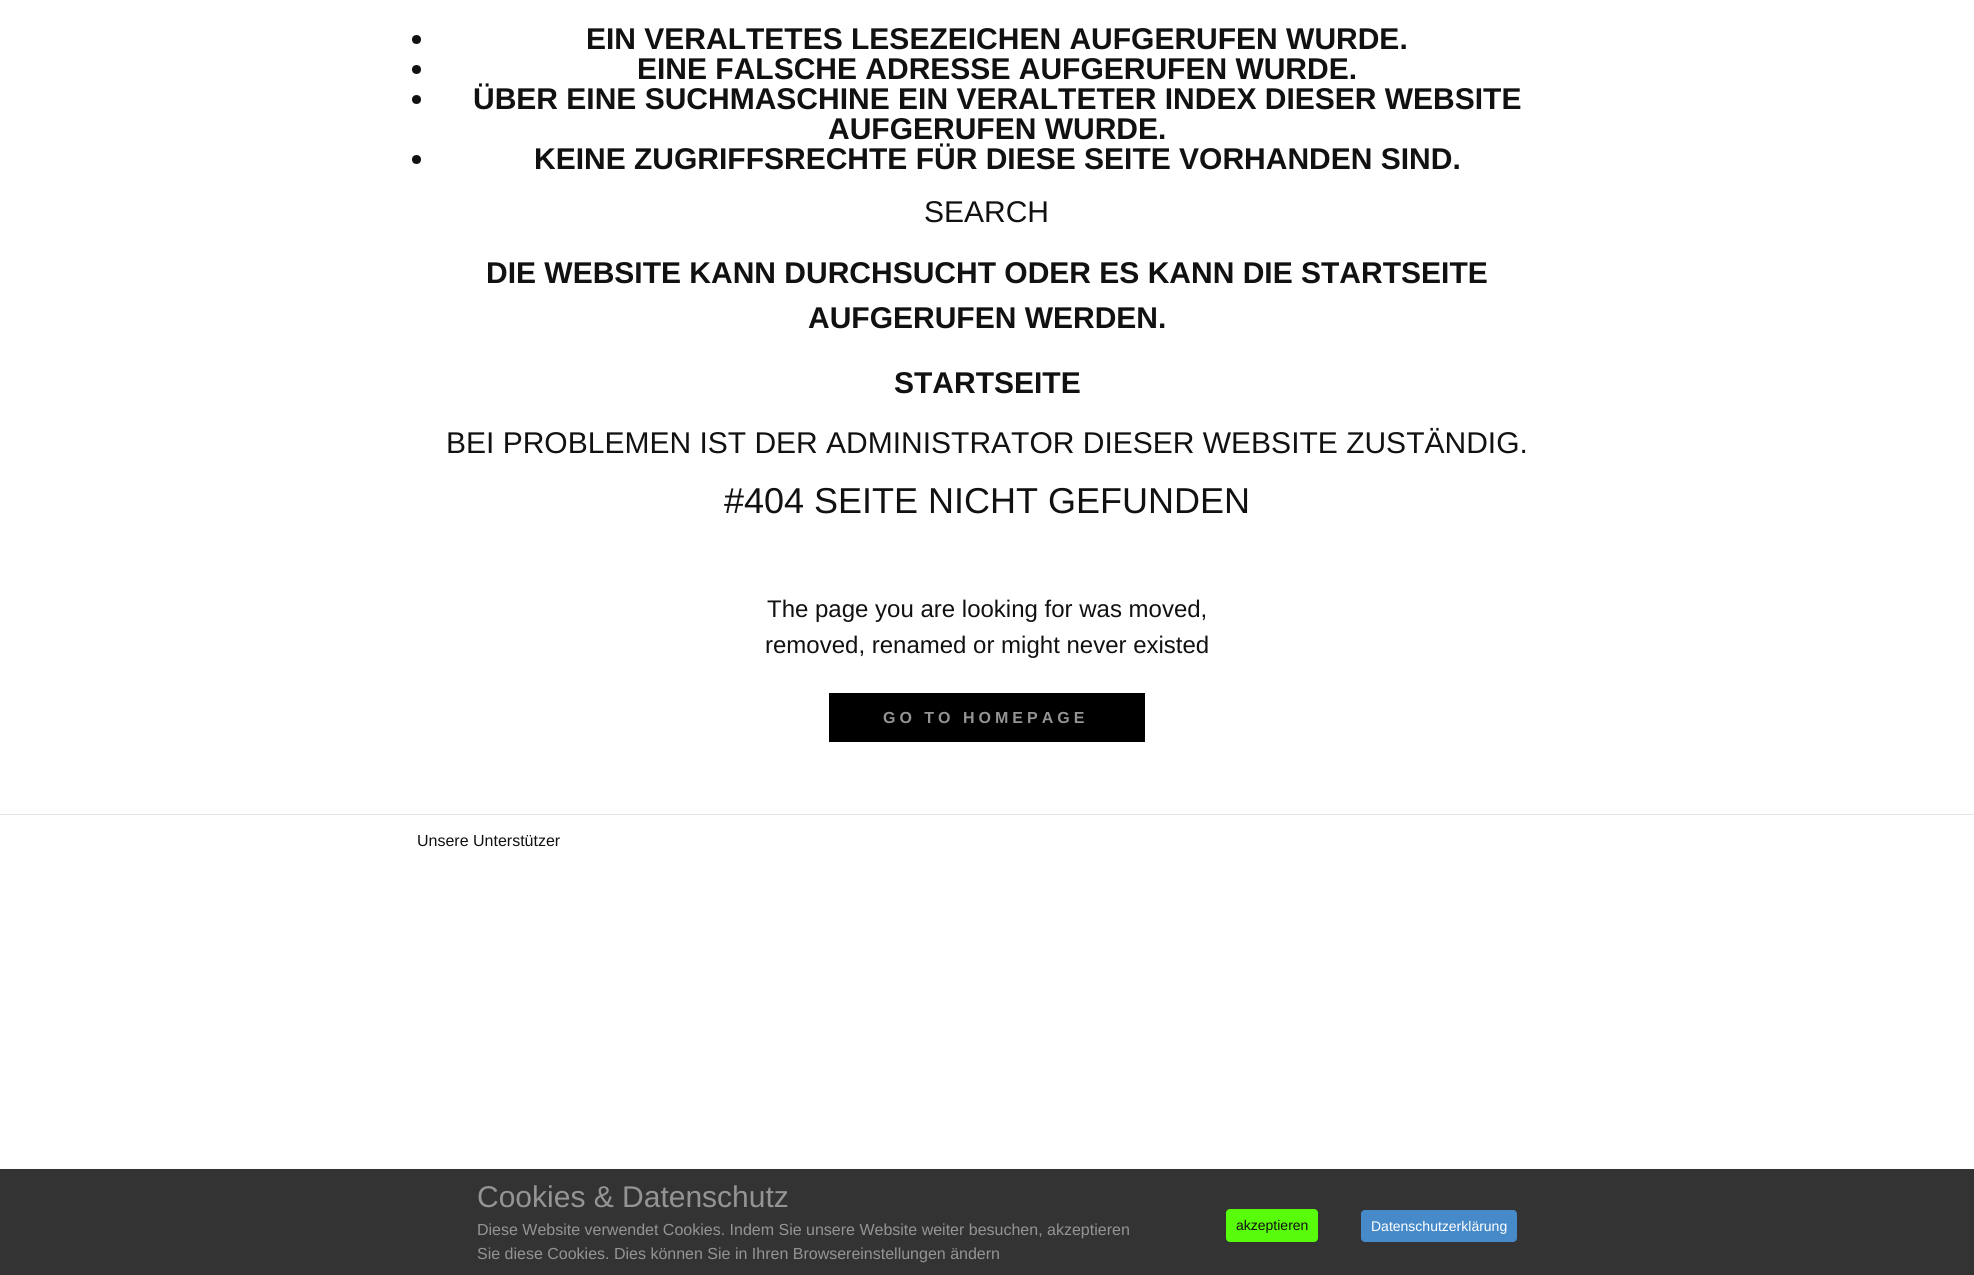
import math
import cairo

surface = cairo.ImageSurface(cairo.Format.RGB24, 1974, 1275)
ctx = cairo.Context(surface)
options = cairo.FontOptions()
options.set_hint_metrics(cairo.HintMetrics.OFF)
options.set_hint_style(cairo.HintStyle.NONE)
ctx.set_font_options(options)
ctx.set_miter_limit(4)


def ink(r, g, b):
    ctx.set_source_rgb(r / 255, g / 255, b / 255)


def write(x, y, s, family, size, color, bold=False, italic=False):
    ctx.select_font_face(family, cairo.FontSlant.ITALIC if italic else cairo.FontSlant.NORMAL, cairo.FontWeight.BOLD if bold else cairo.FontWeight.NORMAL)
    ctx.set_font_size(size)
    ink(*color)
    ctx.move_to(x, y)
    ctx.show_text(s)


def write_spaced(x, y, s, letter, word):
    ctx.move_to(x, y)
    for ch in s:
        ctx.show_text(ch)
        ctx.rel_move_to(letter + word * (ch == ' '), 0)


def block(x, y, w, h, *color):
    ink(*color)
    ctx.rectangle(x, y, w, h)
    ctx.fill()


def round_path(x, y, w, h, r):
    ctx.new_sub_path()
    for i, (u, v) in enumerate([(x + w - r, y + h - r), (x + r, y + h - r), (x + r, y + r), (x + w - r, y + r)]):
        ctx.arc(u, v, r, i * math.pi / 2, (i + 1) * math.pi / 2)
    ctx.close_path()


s1 = dict(family="Liberation Sans", size=30, color=(17, 17, 17), bold=True)
s2 = dict(family="Liberation Sans", size=30, color=(17, 17, 17))
s3 = dict(family="Liberation Sans", size=36, color=(17, 17, 17))
s4 = dict(family="Liberation Sans", size=24, color=(17, 17, 17))
s5 = dict(family="Liberation Sans", size=16, color=(17, 17, 17))
s6 = dict(family="Liberation Sans", size=30, color=(148, 148, 148))
s7 = dict(family="Liberation Sans", size=16, color=(148, 148, 148))
s8 = dict(family="Liberation Sans", size=14, color=(17, 17, 17))
s9 = dict(family="Liberation Sans", size=14, color=(255, 255, 255))

ink(255, 255, 255)
ctx.paint()
ink(17, 17, 17)
ctx.arc(416.5, 39.5, 4.5, 0, 2 * math.pi)
ctx.fill()
write(586, 49, "EIN VERALTETES LESEZEICHEN AUFGERUFEN WURDE.", **s1)
ctx.new_path()
ctx.arc(416.5, 69.5, 4.5, 0, 2 * math.pi)
ctx.fill()
write(637, 79, "EINE FALSCHE ADRESSE AUFGERUFEN WURDE.", **s1)
ctx.new_path()
ctx.arc(416.5, 99.5, 4.5, 0, 2 * math.pi)
ctx.fill()
write(473, 109, "ÜBER EINE SUCHMASCHINE EIN VERALTETER INDEX DIESER WEBSITE", **s1)
write(828, 139, "AUFGERUFEN WURDE.", **s1)
ctx.new_path()
ctx.arc(416.5, 159.5, 4.5, 0, 2 * math.pi)
ctx.fill()
write(534, 169, "KEINE ZUGRIFFSRECHTE FÜR DIESE SEITE VORHANDEN SIND.", **s1)
write(924, 222, "SEARCH", **s2)
write(486, 283, "DIE WEBSITE KANN DURCHSUCHT ODER ES KANN DIE STARTSEITE", **s1)
write(808, 328, "AUFGERUFEN WERDEN.", **s1)
write(894, 393, "STARTSEITE", **s1)
write(446, 453, "BEI PROBLEMEN IST DER ADMINISTRATOR DIESER WEBSITE ZUSTÄNDIG.", **s2)
write(724, 513, "#404 SEITE NICHT GEFUNDEN", **s3)
write(767, 617, "The page you are looking for was moved,", **s4)
write(765, 653, "removed, renamed or might never existed", **s4)
block(829, 693, 316, 49, 0, 0, 0)
ctx.select_font_face("Liberation Sans", cairo.FontSlant.NORMAL, cairo.FontWeight.BOLD)
ctx.set_font_size(16)
ink(148, 148, 148)
write_spaced(883, 723, "GO TO HOMEPAGE", 4, 0)
block(0, 814, 1974, 1, 229, 229, 229)
write(417, 846, "Unsere Unterstützer", **s5)
block(0, 1169, 1974, 106, 51, 51, 51)
write(477, 1207, "Cookies & Datenschutz", **s6)
write(477, 1235, "Diese Website verwendet Cookies. Indem Sie unsere Website weiter besuchen, akzeptieren", **s7)
write(477, 1259, "Sie diese Cookies. Dies können Sie in Ihren Browsereinstellungen ändern", **s7)
ink(88, 251, 10)
round_path(1226, 1209, 92, 33, 4)
ctx.fill()
write(1236, 1230, "akzeptieren", **s8)
ink(71, 138, 201)
round_path(1361, 1210, 156, 32, 4)
ctx.fill()
write(1371, 1231, "Datenschutzerklärung", **s9)
surface.write_to_png("screenshot.png")
